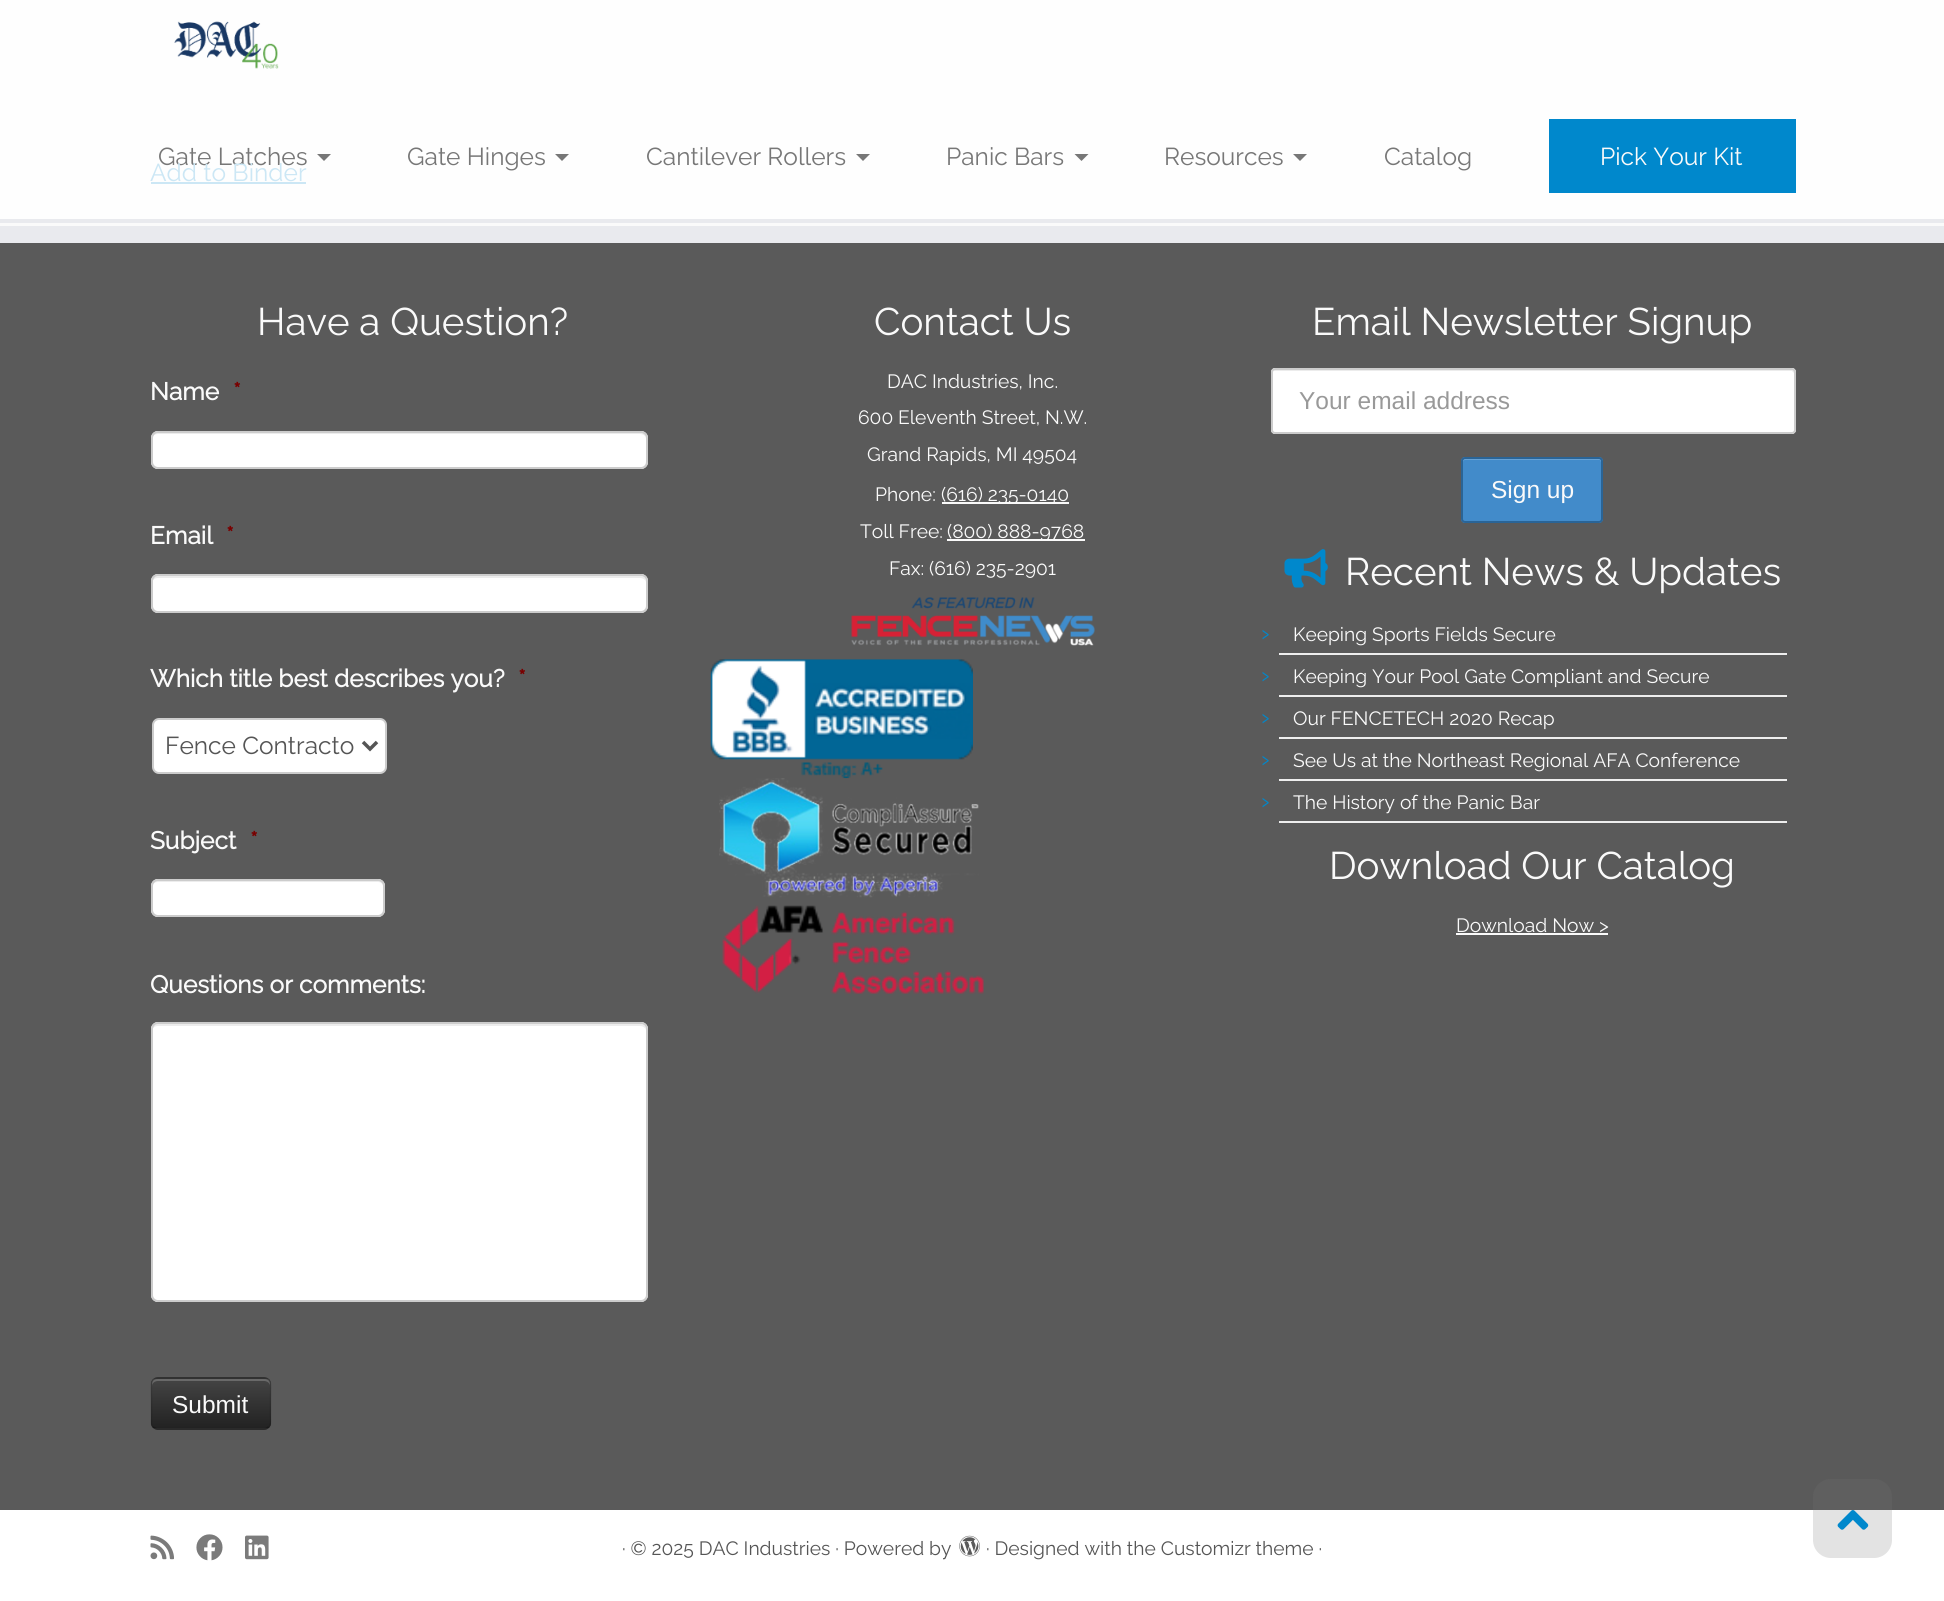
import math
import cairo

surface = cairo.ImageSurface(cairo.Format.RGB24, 1944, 1601)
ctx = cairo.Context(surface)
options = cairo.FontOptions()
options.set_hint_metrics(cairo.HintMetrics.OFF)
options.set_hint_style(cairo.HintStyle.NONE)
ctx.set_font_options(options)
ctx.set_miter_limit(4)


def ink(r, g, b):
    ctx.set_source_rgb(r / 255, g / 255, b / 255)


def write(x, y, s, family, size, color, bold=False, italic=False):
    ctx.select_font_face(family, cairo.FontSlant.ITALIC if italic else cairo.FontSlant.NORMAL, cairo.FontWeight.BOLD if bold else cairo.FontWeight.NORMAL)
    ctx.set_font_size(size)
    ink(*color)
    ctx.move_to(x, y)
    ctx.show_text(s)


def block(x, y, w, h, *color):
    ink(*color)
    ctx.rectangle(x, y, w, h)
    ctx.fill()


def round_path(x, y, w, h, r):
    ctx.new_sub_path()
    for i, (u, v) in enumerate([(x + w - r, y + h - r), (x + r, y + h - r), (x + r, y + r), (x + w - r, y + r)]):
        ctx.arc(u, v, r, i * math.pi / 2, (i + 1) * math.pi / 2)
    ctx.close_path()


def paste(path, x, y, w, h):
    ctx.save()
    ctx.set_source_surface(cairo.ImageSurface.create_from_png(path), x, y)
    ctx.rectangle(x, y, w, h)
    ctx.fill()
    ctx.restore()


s1 = dict(family="Raleway Thin", size=24.5, color=(119, 119, 119))
s2 = dict(family="Raleway Thin", size=24.5, color=(250, 250, 250))
s3 = dict(family="Raleway Thin", size=24.5, color=(204, 231, 245))
s4 = dict(family="Raleway Thin", size=38.5, color=(250, 250, 250))
s5 = dict(family="Raleway", size=24.5, color=(250, 250, 250), bold=True)
s6 = dict(family="Raleway", size=24.5, color=(121, 0, 0), bold=True)
s7 = dict(family="Raleway Thin", size=24.5, color=(85, 85, 85))
s8 = dict(family="Liberation Sans", size=24.5, color=(250, 250, 250))
s9 = dict(family="Raleway Thin", size=19.25, color=(250, 250, 250))
s10 = dict(family="Liberation Sans", size=24.5, color=(153, 153, 153))
s11 = dict(family="Raleway Thin", size=24.5, color=(0, 136, 204))
s12 = dict(family="Raleway Thin", size=19.25, color=(85, 85, 85))

ink(250, 250, 250)
ctx.paint()
block(0, 0, 1944, 219, 254, 254, 254)
block(0, 219, 1944, 4, 233, 234, 238)
paste("pic1.png", 174, 21, 105, 48)
write(158, 165, "Gate Latches", **s1)
ctx.new_path()
ctx.move_to(317, 154)
ctx.line_to(331, 154)
ctx.line_to(324, 161)
ctx.close_path()
ctx.fill()
write(407, 165, "Gate Hinges", **s1)
ctx.new_path()
ctx.move_to(555, 154)
ctx.line_to(569, 154)
ctx.line_to(562, 161)
ctx.close_path()
ctx.fill()
write(646, 165, "Cantilever Rollers", **s1)
ctx.new_path()
ctx.move_to(856, 154)
ctx.line_to(870, 154)
ctx.line_to(863, 161)
ctx.close_path()
ctx.fill()
write(946, 165, "Panic Bars", **s1)
ctx.new_path()
ctx.move_to(1074.5, 154)
ctx.line_to(1088.5, 154)
ctx.line_to(1081.5, 161)
ctx.close_path()
ctx.fill()
write(1164, 165, "Resources", **s1)
ctx.new_path()
ctx.move_to(1293, 154)
ctx.line_to(1307, 154)
ctx.line_to(1300, 161)
ctx.close_path()
ctx.fill()
write(1384, 165, "Catalog", **s1)
block(1549, 119, 247, 74, 0, 136, 204)
write(1600, 165, "Pick Your Kit", **s2)
write(150, 181, "Add to Binder", **s3)
block(151, 182, 155, 2, 204, 231, 245)
block(0, 243, 1944, 1267, 90, 90, 90)
block(0, 226, 1944, 17, 233, 234, 238)
write(257, 335, "Have a Question?", **s4)
write(150, 400, "Name", **s5)
write(233, 400, "*", **s6)
ink(255, 255, 255)
round_path(151, 431, 497, 38, 7)
ctx.fill()
ink(236, 236, 236)
ctx.new_path()
ctx.move_to(158, 434)
ctx.line_to(640, 434)
ctx.curve_to(643, 434, 646, 436, 646, 439)
ctx.curve_to(646, 436, 645, 432, 641, 432)
ctx.line_to(157, 432)
ctx.curve_to(153, 432, 152, 436, 152, 439)
ctx.curve_to(152, 436, 155, 434, 158, 434)
ctx.close_path()
ctx.fill()
round_path(152, 432, 495, 36, 6)
ink(204, 204, 204)
ctx.stroke()
write(150, 544, "Email", **s5)
write(226, 544, "*", **s6)
ink(255, 255, 255)
round_path(151, 574, 497, 39, 7)
ctx.fill()
ink(236, 236, 236)
ctx.new_path()
ctx.move_to(158, 578)
ctx.line_to(640, 578)
ctx.curve_to(643, 578, 646, 580, 646, 583)
ctx.curve_to(646, 580, 645, 576, 641, 576)
ctx.line_to(157, 576)
ctx.curve_to(153, 576, 152, 580, 152, 583)
ctx.curve_to(152, 580, 155, 578, 158, 578)
ctx.close_path()
ctx.fill()
round_path(152, 575, 495, 37, 6)
ink(204, 204, 204)
ctx.stroke()
write(150, 687, "Which title best describes you?", **s5)
write(518, 687, "*", **s6)
ink(255, 255, 255)
round_path(153, 719, 233, 54, 6)
ctx.fill_preserve()
ink(204, 204, 204)
ctx.stroke()
ctx.new_path()
ctx.move_to(363, 742)
ctx.line_to(370, 749)
ctx.line_to(377, 742)
ink(85, 85, 85)
ctx.set_line_width(3.5)
ctx.stroke()
write(165, 754, "Fence Contracto", **s7)
write(150, 849, "Subject", **s5)
write(250, 849, "*", **s6)
ink(255, 255, 255)
round_path(151, 879, 234, 38, 7)
ctx.fill()
ink(236, 236, 236)
ctx.new_path()
ctx.move_to(158, 882)
ctx.line_to(378, 882)
ctx.curve_to(381, 882, 383, 884, 383, 887)
ctx.curve_to(383, 884, 382, 880, 378, 880)
ctx.line_to(156, 880)
ctx.curve_to(152, 881, 152, 884, 152, 887)
ctx.curve_to(152, 884, 155, 882, 158, 882)
ctx.close_path()
ctx.fill()
round_path(152, 880, 232, 36, 6)
ink(204, 204, 204)
ctx.set_line_width(2)
ctx.stroke()
write(150, 993, "Questions or comments:", **s5)
ink(255, 255, 255)
round_path(151, 1022, 497, 280, 7)
ctx.fill()
ink(236, 236, 236)
ctx.new_path()
ctx.move_to(158, 1026)
ctx.line_to(640, 1026)
ctx.curve_to(643, 1026, 646, 1028, 646, 1031)
ctx.curve_to(646, 1028, 645, 1024, 641, 1024)
ctx.line_to(157, 1024)
ctx.curve_to(153, 1024, 152, 1028, 152, 1031)
ctx.curve_to(152, 1028, 155, 1026, 158, 1026)
ctx.close_path()
ctx.fill()
round_path(152, 1023, 495, 278, 6)
ink(204, 204, 204)
ctx.stroke()
ink(54, 54, 54)
round_path(151, 1377, 120, 53, 7)
ctx.fill()
ctx.save()
round_path(151, 1377, 120, 53, 7)
ctx.clip()
gradient = cairo.LinearGradient(211, 1379, 211, 1428)
gradient.add_color_stop_rgba(0, 0.267, 0.267, 0.267, 1)
gradient.add_color_stop_rgba(1, 0.133, 0.133, 0.133, 1)
ctx.set_source(gradient)
ctx.rectangle(151, 1379, 120, 49)
ctx.fill()
ctx.restore()
ctx.set_source_rgba(1, 1, 1, 0.2)
ctx.new_path()
ctx.move_to(158, 1381)
ctx.line_to(264, 1381)
ctx.curve_to(267, 1381, 270, 1383, 270, 1386)
ctx.line_to(270, 1384)
ctx.curve_to(270, 1381, 268, 1379, 265, 1379)
ctx.line_to(157, 1379)
ctx.curve_to(154, 1379, 152, 1381, 152, 1384)
ctx.line_to(152, 1386)
ctx.curve_to(152, 1383, 155, 1381, 158, 1381)
ctx.close_path()
ctx.fill()
ctx.new_path()
ctx.move_to(268.5, 1427)
ctx.curve_to(267.5, 1428, 266, 1429, 264, 1429)
ctx.line_to(157.5, 1429)
ctx.curve_to(156, 1429, 154.5, 1428, 153, 1427)
ctx.set_source_rgba(0, 0, 0, 0.25)
ctx.set_line_width(1.8)
ctx.stroke()
ctx.new_path()
ctx.move_to(153, 1427)
ctx.curve_to(150.5, 1424.5, 151.5, 1419.5, 151.5, 1416.5)
ctx.line_to(151.5, 1403.5)
ctx.curve_to(151.5, 1375.5, 147, 1378, 175.5, 1378)
ctx.line_to(246.5, 1378)
ctx.curve_to(275, 1378, 270.5, 1375.5, 270.5, 1403.5)
ctx.line_to(270.5, 1416.5)
ctx.curve_to(270.5, 1419.5, 271.5, 1424.5, 268.5, 1427)
ctx.set_source_rgba(0, 0, 0, 0.1)
ctx.stroke()
write(172, 1413, "Submit", **s8)
write(874, 335, "Contact Us", **s4)
write(887, 388, "DAC Industries, Inc.", **s9)
write(858, 424, "600 Eleventh Street, N.W.", **s9)
write(867, 461, "Grand Rapids, MI 49504", **s9)
write(875, 501, "Phone:", **s9)
block(942, 502, 127, 2, 250, 250, 250)
write(941, 501, "(616) 235-0140", **s9)
write(860, 538, "Toll Free:", **s9)
block(947, 539, 138, 2, 250, 250, 250)
write(947, 538, "(800) 888-9768", **s9)
write(889, 575, "Fax: (616) 235-2901", **s9)
paste("pic2.png", 851, 597, 244, 49)
paste("pic4.png", 719, 778, 260, 120)
paste("pic3.png", 710, 659, 263, 120)
paste("pic5.png", 722, 905, 262, 89)
write(1312, 335, "Email Newsletter Signup", **s4)
ink(255, 255, 255)
round_path(1271, 368, 525, 66, 4)
ctx.fill()
ink(236, 236, 236)
ctx.new_path()
ctx.move_to(1274, 371)
ctx.line_to(1792, 371)
ctx.line_to(1794, 373)
ctx.line_to(1794, 370)
ctx.line_to(1793, 369)
ctx.line_to(1274, 369)
ctx.curve_to(1272, 369, 1272, 371, 1272, 373)
ctx.curve_to(1272, 372, 1273, 371, 1274, 371)
ctx.close_path()
ctx.fill()
round_path(1272, 369, 523, 64, 3)
ink(204, 204, 204)
ctx.set_line_width(2)
ctx.stroke()
write(1299, 409, "Your email address", **s10)
ink(66, 139, 202)
round_path(1461, 457, 142, 66, 4)
ctx.fill()
ink(104, 162, 213)
ctx.new_path()
ctx.move_to(1465, 460)
ctx.line_to(1600, 460)
ctx.line_to(1601, 462)
ctx.curve_to(1601, 461, 1601, 459, 1599, 459)
ctx.line_to(1465, 459)
ctx.curve_to(1463, 459, 1463, 461, 1463, 462)
ctx.curve_to(1463, 461, 1464, 460, 1465, 460)
ctx.close_path()
ctx.fill()
round_path(1462, 458, 140, 64, 3)
ink(42, 100, 150)
ctx.stroke()
write(1491, 498, "Sign up", **s8)
paste("pic6.png", 1284, 549, 44, 39)
write(1345, 585, "Recent News & Updates", **s4)
block(1279, 653, 508, 2, 238, 238, 238)
write(1261, 641, "›", **s11)
write(1293, 641, "Keeping Sports Fields Secure", **s9)
block(1279, 695, 508, 2, 238, 238, 238)
write(1261, 683, "›", **s11)
write(1293, 683, "Keeping Your Pool Gate Compliant and Secure", **s9)
block(1279, 737, 508, 2, 238, 238, 238)
write(1261, 725, "›", **s11)
write(1293, 725, "Our FENCETECH 2020 Recap", **s9)
block(1279, 779, 508, 2, 238, 238, 238)
write(1261, 767, "›", **s11)
write(1293, 767, "See Us at the Northeast Regional AFA Conference", **s9)
block(1279, 821, 508, 2, 238, 238, 238)
write(1261, 809, "›", **s11)
write(1293, 809, "The History of the Panic Bar", **s9)
write(1329, 879, "Download Our Catalog", **s4)
write(1456, 932, "Download Now >", **s9)
block(1456, 933, 152, 2, 250, 250, 250)
block(0, 1510, 1944, 91, 255, 255, 255)
paste("pic7.png", 150, 1535, 24, 25)
paste("pic8.png", 196, 1534, 27, 27)
paste("pic9.png", 245, 1535, 24, 25)
write(622, 1555, "· © 2025 DAC Industries · Powered by", **s12)
paste("pic10.png", 959, 1535, 21, 22)
write(986, 1555, "· Designed with the Customizr theme ·", **s12)
ctx.set_source_rgba(0.467, 0.467, 0.467, 0.2)
round_path(1813, 1479, 79, 79, 18)
ctx.fill()
paste("pic11.png", 1837, 1510, 32, 20)
surface.write_to_png("screenshot.png")
